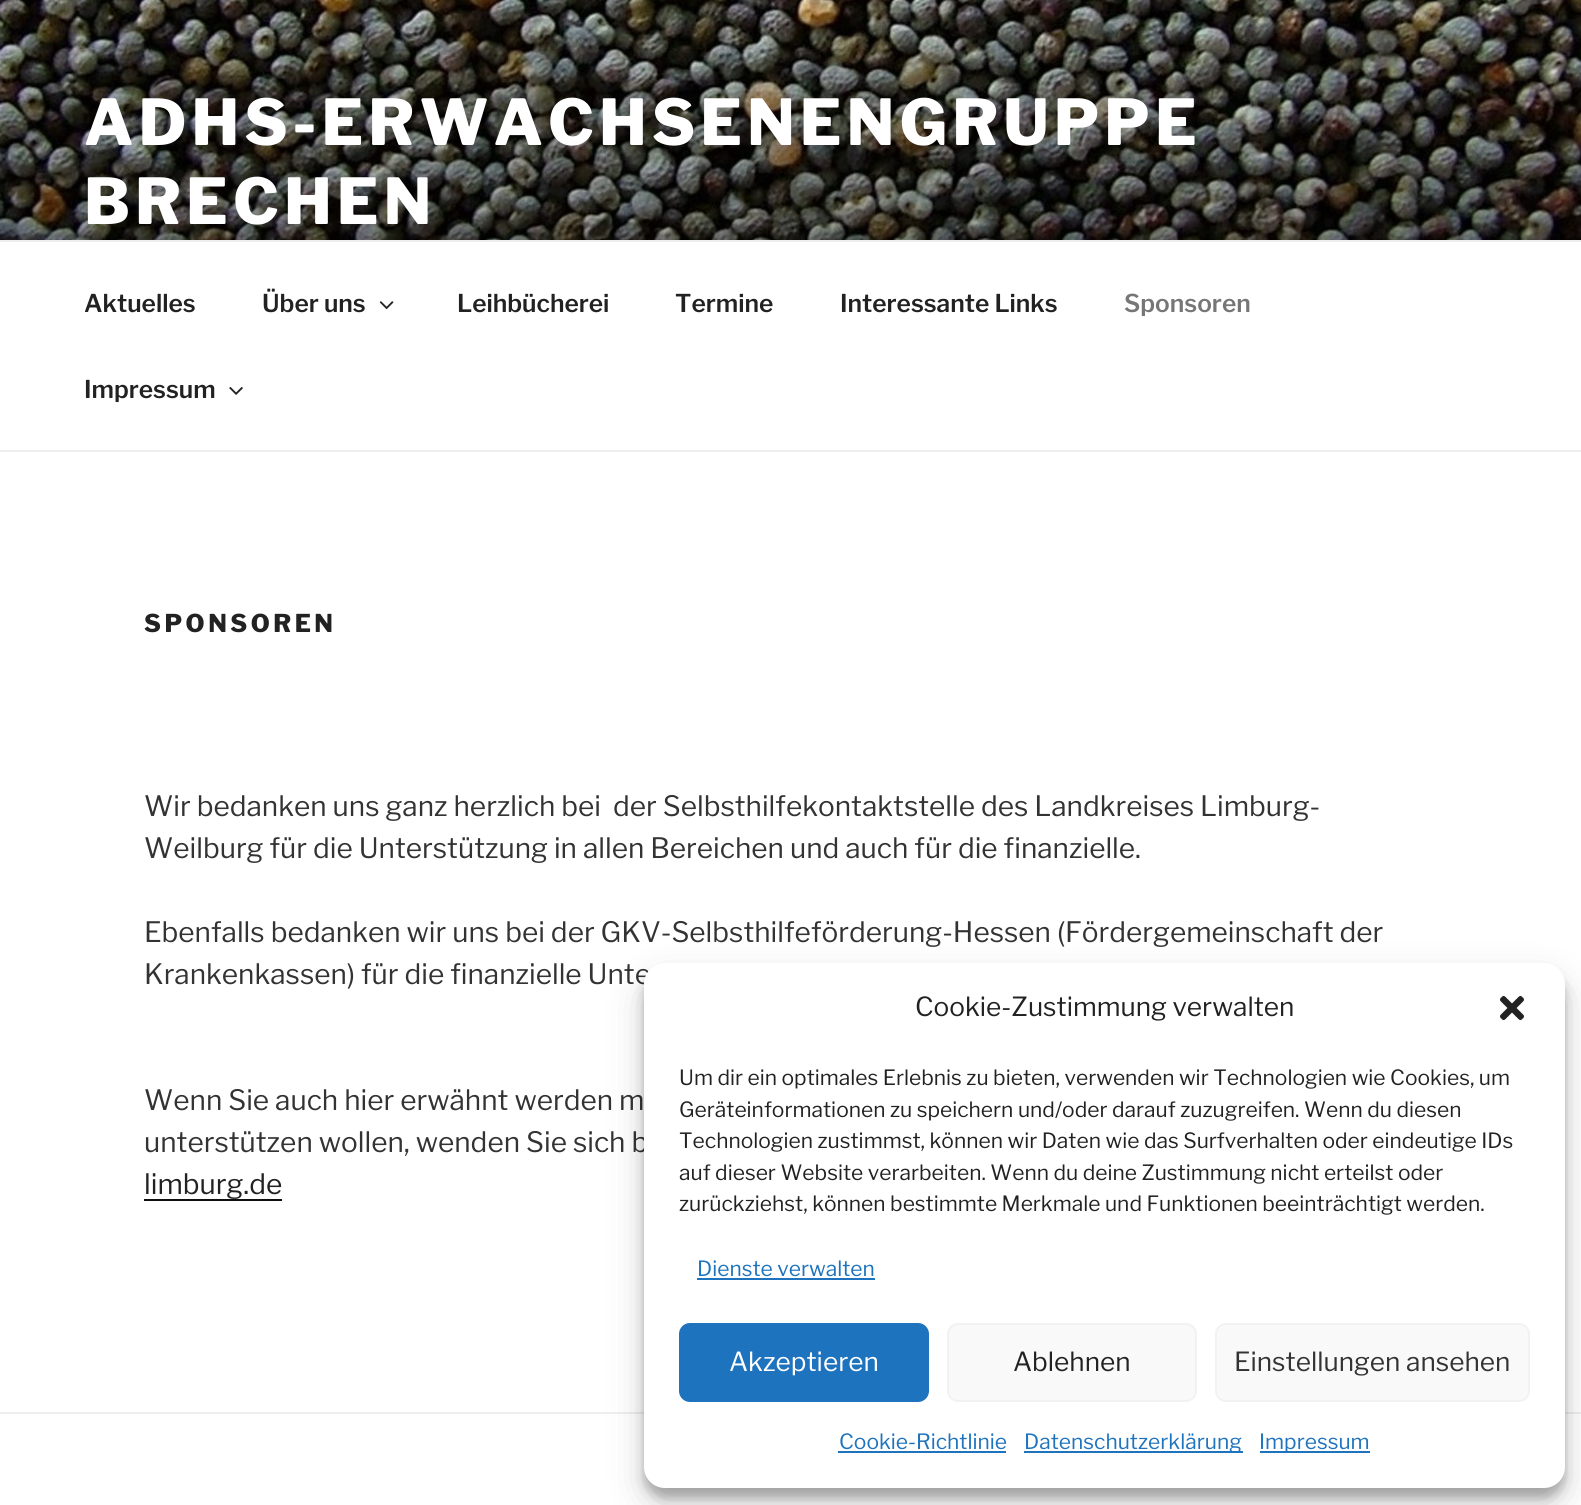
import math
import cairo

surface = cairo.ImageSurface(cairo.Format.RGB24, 1581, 1505)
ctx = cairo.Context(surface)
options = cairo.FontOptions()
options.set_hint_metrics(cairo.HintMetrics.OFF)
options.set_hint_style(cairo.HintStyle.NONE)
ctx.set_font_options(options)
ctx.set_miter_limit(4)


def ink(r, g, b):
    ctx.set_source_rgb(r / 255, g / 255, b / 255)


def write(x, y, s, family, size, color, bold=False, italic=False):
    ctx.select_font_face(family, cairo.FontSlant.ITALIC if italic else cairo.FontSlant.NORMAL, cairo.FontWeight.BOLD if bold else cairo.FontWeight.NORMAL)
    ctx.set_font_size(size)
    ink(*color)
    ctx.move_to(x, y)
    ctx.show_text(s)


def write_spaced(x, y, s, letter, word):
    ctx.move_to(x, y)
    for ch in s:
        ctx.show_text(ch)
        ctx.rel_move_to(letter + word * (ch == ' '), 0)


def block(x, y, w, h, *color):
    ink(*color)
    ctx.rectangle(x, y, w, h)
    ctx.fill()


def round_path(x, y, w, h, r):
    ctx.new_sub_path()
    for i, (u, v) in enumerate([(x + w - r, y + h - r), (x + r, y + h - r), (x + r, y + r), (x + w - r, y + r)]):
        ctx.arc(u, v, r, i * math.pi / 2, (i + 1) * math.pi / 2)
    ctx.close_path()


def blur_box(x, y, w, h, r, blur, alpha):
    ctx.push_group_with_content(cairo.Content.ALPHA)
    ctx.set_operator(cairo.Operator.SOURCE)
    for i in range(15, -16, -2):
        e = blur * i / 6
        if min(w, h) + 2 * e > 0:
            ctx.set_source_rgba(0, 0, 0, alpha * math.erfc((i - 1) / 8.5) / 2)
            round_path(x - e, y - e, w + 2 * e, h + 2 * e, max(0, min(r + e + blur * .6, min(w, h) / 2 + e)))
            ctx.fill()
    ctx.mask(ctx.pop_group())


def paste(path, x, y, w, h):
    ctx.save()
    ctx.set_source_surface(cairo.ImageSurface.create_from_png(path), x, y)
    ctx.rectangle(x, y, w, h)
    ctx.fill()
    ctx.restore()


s1 = dict(family="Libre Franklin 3 Thin", size=24.5, color=(34, 34, 34))
s2 = dict(family="Libre Franklin 3 Thin", size=24.5, color=(118, 118, 118))
s3 = dict(family="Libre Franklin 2 Thin", size=28, color=(51, 51, 51))
s4 = dict(family="Libre Franklin 2 Thin", size=28, color=(34, 34, 34))
s5 = dict(family="Libre Franklin 2 Thin", size=26.25, color=(34, 34, 34))
s6 = dict(family="Libre Franklin 2 Thin", size=21, color=(34, 34, 34))
s7 = dict(family="Libre Franklin 2 Thin", size=21, color=(30, 115, 190))
s8 = dict(family="Libre Franklin 2 Thin", size=26.25, color=(255, 255, 255))
s9 = dict(family="Libre Franklin 2 Thin", size=26.25, color=(51, 51, 51))

ink(255, 255, 255)
ctx.paint()
paste("pic1.png", 0, 0, 1581, 240)
gradient = cairo.LinearGradient(791, 0, 791, 326)
gradient.add_color_stop_rgba(0, 0, 0, 0, 0)
gradient.add_color_stop_rgba(0.75, 0, 0, 0, 0.3)
gradient.add_color_stop_rgba(1, 0, 0, 0, 0.3)
ctx.set_source(gradient)
ctx.rectangle(0, 18, 1581, 222)
ctx.fill()
ctx.select_font_face("Libre Franklin Thin")
ctx.set_font_size(63)
ink(255, 255, 255)
write_spaced(84, 145, "ADHS-ERWACHSENENGRUPPE", 5, 0)
write_spaced(84, 224, "BRECHEN", 5, 0)
block(0, 240, 1581, 2, 238, 238, 238)
block(0, 450, 1581, 2, 238, 238, 238)
write(84, 312, "Aktuelles", **s1)
write(262, 312, "Über uns", **s1)
paste("pic2.png", 379, 301, 15, 9)
write(457, 312, "Leihbücherei", **s1)
write(675, 312, "Termine", **s1)
write(840, 312, "Interessante Links", **s1)
write(1124, 312, "Sponsoren", **s2)
write(84, 398, "Impressum", **s1)
paste("pic3.png", 229, 387, 14, 8)
ctx.select_font_face("Libre Franklin Thin")
write_spaced(144, 632, "SPONSOREN", 3.5, 0)
write(144, 816, "Wir bedanken uns ganz herzlich bei  der Selbsthilfekontaktstelle des Landkreises Limburg-", **s3)
write(144, 858, "Weilburg für die Unterstützung in allen Bereichen und auch für die finanzielle.", **s3)
write(144, 942, "Ebenfalls bedanken wir uns bei der GKV-Selbsthilfeförderung-Hessen (Fördergemeinschaft der", **s3)
write(144, 984, "Krankenkassen) für die finanzielle Unte", **s3)
write(144, 1110, "Wenn Sie auch hier erwähnt werden m", **s3)
write(144, 1152, "unterstützen wollen, wenden Sie sich b", **s3)
write(144, 1194, "limburg.de", **s4)
block(144, 1199, 138, 2, 15, 15, 15)
block(0, 1412, 1581, 2, 238, 238, 238)
ink(0, 0, 0)
blur_box(644, 973, 921, 525, 21, 5, 0.23)
blur_box(644, 980, 921, 525, 21, 17.5, 0.19)
ink(255, 255, 255)
round_path(644, 963, 921, 525, 21)
ctx.fill()
write(915, 1016, "Cookie-Zustimmung verwalten", **s5)
paste("pic4.png", 1500, 996, 24, 24)
write(679, 1085, "Um dir ein optimales Erlebnis zu bieten, verwenden wir Technologien wie Cookies, um", **s6)
write(679, 1117, "Geräteinformationen zu speichern und/oder darauf zuzugreifen. Wenn du diesen", **s6)
write(679, 1148, "Technologien zustimmst, können wir Daten wie das Surfverhalten oder eindeutige IDs", **s6)
write(679, 1180, "auf dieser Website verarbeiten. Wenn du deine Zustimmung nicht erteilst oder", **s6)
write(679, 1211, "zurückziehst, können bestimmte Merkmale und Funktionen beeinträchtigt werden.", **s6)
write(697, 1276, "Dienste verwalten", **s7)
block(697, 1278, 178, 2, 30, 115, 190)
round_path(680, 1324, 248, 77, 10)
ctx.fill_preserve()
ctx.stroke()
write(729, 1371, "Akzeptieren", **s8)
ink(249, 249, 249)
round_path(948, 1324, 248, 77, 10)
ctx.fill_preserve()
ink(242, 242, 242)
ctx.stroke()
write(1013, 1371, "Ablehnen", **s5)
ink(249, 249, 249)
round_path(1216, 1324, 313, 77, 10)
ctx.fill_preserve()
ink(242, 242, 242)
ctx.stroke()
write(1234, 1371, "Einstellungen ansehen", **s9)
write(839, 1449, "Cookie-Richtlinie", **s7)
block(838, 1451, 168, 2, 30, 115, 190)
block(1024, 1451, 219, 2, 30, 115, 190)
write(1024, 1449, "Datenschutzerklärung", **s7)
block(1260, 1451, 110, 2, 30, 115, 190)
write(1259, 1449, "Impressum", **s7)
surface.write_to_png("screenshot.png")
